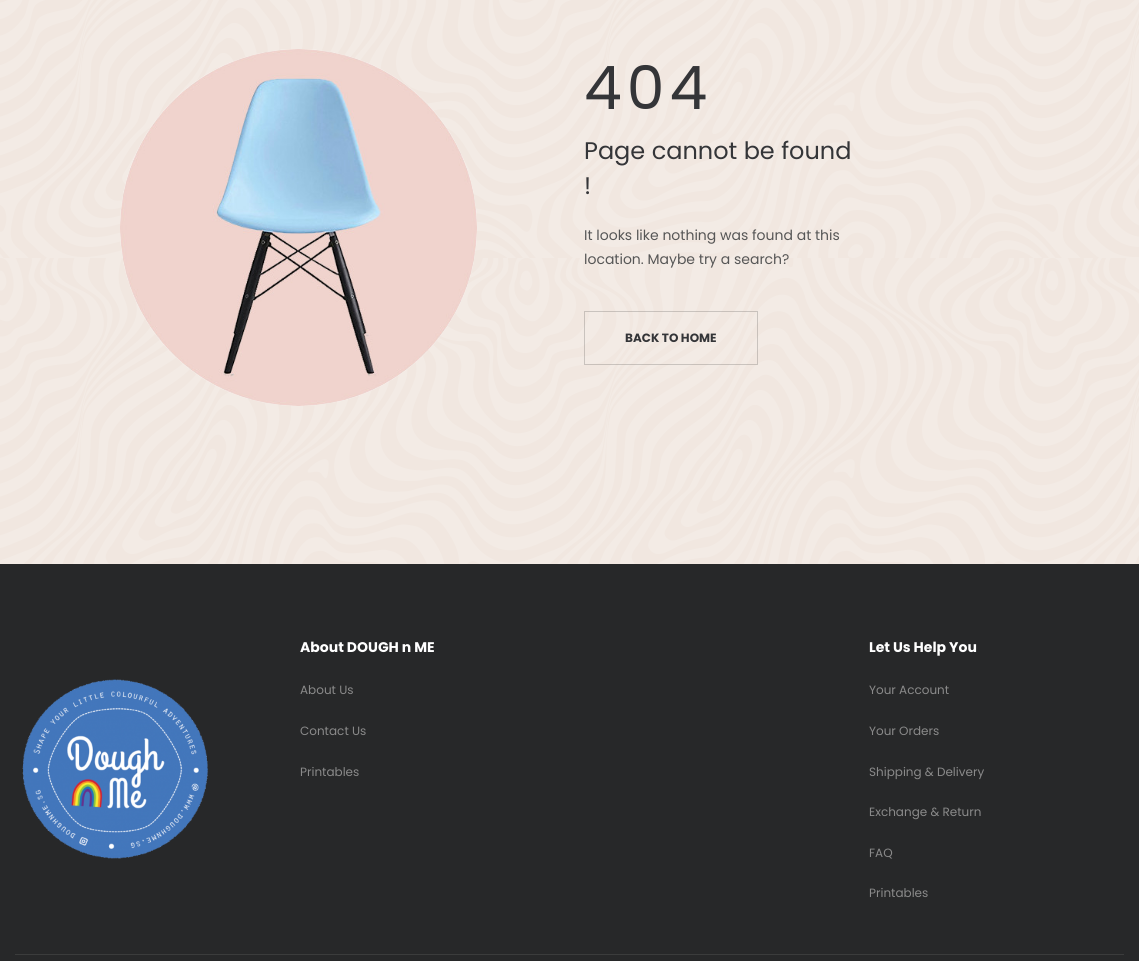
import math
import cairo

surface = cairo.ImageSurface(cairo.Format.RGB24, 1139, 961)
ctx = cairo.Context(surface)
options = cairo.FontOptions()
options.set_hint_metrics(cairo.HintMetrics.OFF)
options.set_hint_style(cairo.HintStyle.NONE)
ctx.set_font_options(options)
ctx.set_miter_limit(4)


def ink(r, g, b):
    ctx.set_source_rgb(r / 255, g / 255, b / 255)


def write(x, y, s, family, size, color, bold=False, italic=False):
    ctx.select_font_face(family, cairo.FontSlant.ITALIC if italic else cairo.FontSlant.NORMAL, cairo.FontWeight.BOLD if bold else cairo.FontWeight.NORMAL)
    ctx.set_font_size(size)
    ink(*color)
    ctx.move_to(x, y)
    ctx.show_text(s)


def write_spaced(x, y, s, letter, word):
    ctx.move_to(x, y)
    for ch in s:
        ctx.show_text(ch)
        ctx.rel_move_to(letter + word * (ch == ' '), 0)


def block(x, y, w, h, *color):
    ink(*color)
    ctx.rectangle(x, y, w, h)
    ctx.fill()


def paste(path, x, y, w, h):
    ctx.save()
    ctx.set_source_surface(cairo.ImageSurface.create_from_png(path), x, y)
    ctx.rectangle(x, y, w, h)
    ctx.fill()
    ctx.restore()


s1 = dict(family="Poppins", size=24, color=(52, 53, 56))
s2 = dict(family="Poppins", size=14, color=(86, 86, 86))
s3 = dict(family="Poppins", size=12, color=(52, 53, 56), bold=True)
s4 = dict(family="Poppins", size=14, color=(255, 255, 255), bold=True)
s5 = dict(family="Poppins", size=12, color=(138, 138, 138))

ink(255, 255, 255)
ctx.paint()
paste("pic1.png", 0, 0, 1139, 564)
paste("pic2.png", 120, 49, 357, 357)
ctx.select_font_face("Poppins")
ctx.set_font_size(60)
ink(52, 53, 56)
write_spaced(584, 109, "404", 5, 0)
write(584, 159, "Page cannot be found", **s1)
write(584, 194, "!", **s1)
write(584, 240, "It looks like nothing was found at this", **s2)
write(584, 264, "location. Maybe try a search?", **s2)
ctx.rectangle(584.5, 311.5, 173, 53)
ctx.set_source_rgba(0.137, 0.137, 0.141, 0.2)
ctx.set_line_width(1)
ctx.stroke()
write(625, 342, "BACK TO HOME", **s3)
block(0, 564, 1139, 397, 39, 40, 41)
paste("pic3.png", 22, 679, 187, 180)
write(300, 652, "About DOUGH n ME", **s4)
write(300, 694, "About Us", **s5)
write(300, 735, "Contact Us", **s5)
write(300, 776, "Printables", **s5)
write(869, 652, "Let Us Help You", **s4)
write(869, 694, "Your Account", **s5)
write(869, 735, "Your Orders", **s5)
write(869, 776, "Shipping & Delivery", **s5)
write(869, 816, "Exchange & Return", **s5)
write(869, 857, "FAQ", **s5)
write(869, 897, "Printables", **s5)
block(15, 954, 1109, 1, 59, 60, 60)
surface.write_to_png("screenshot.png")
